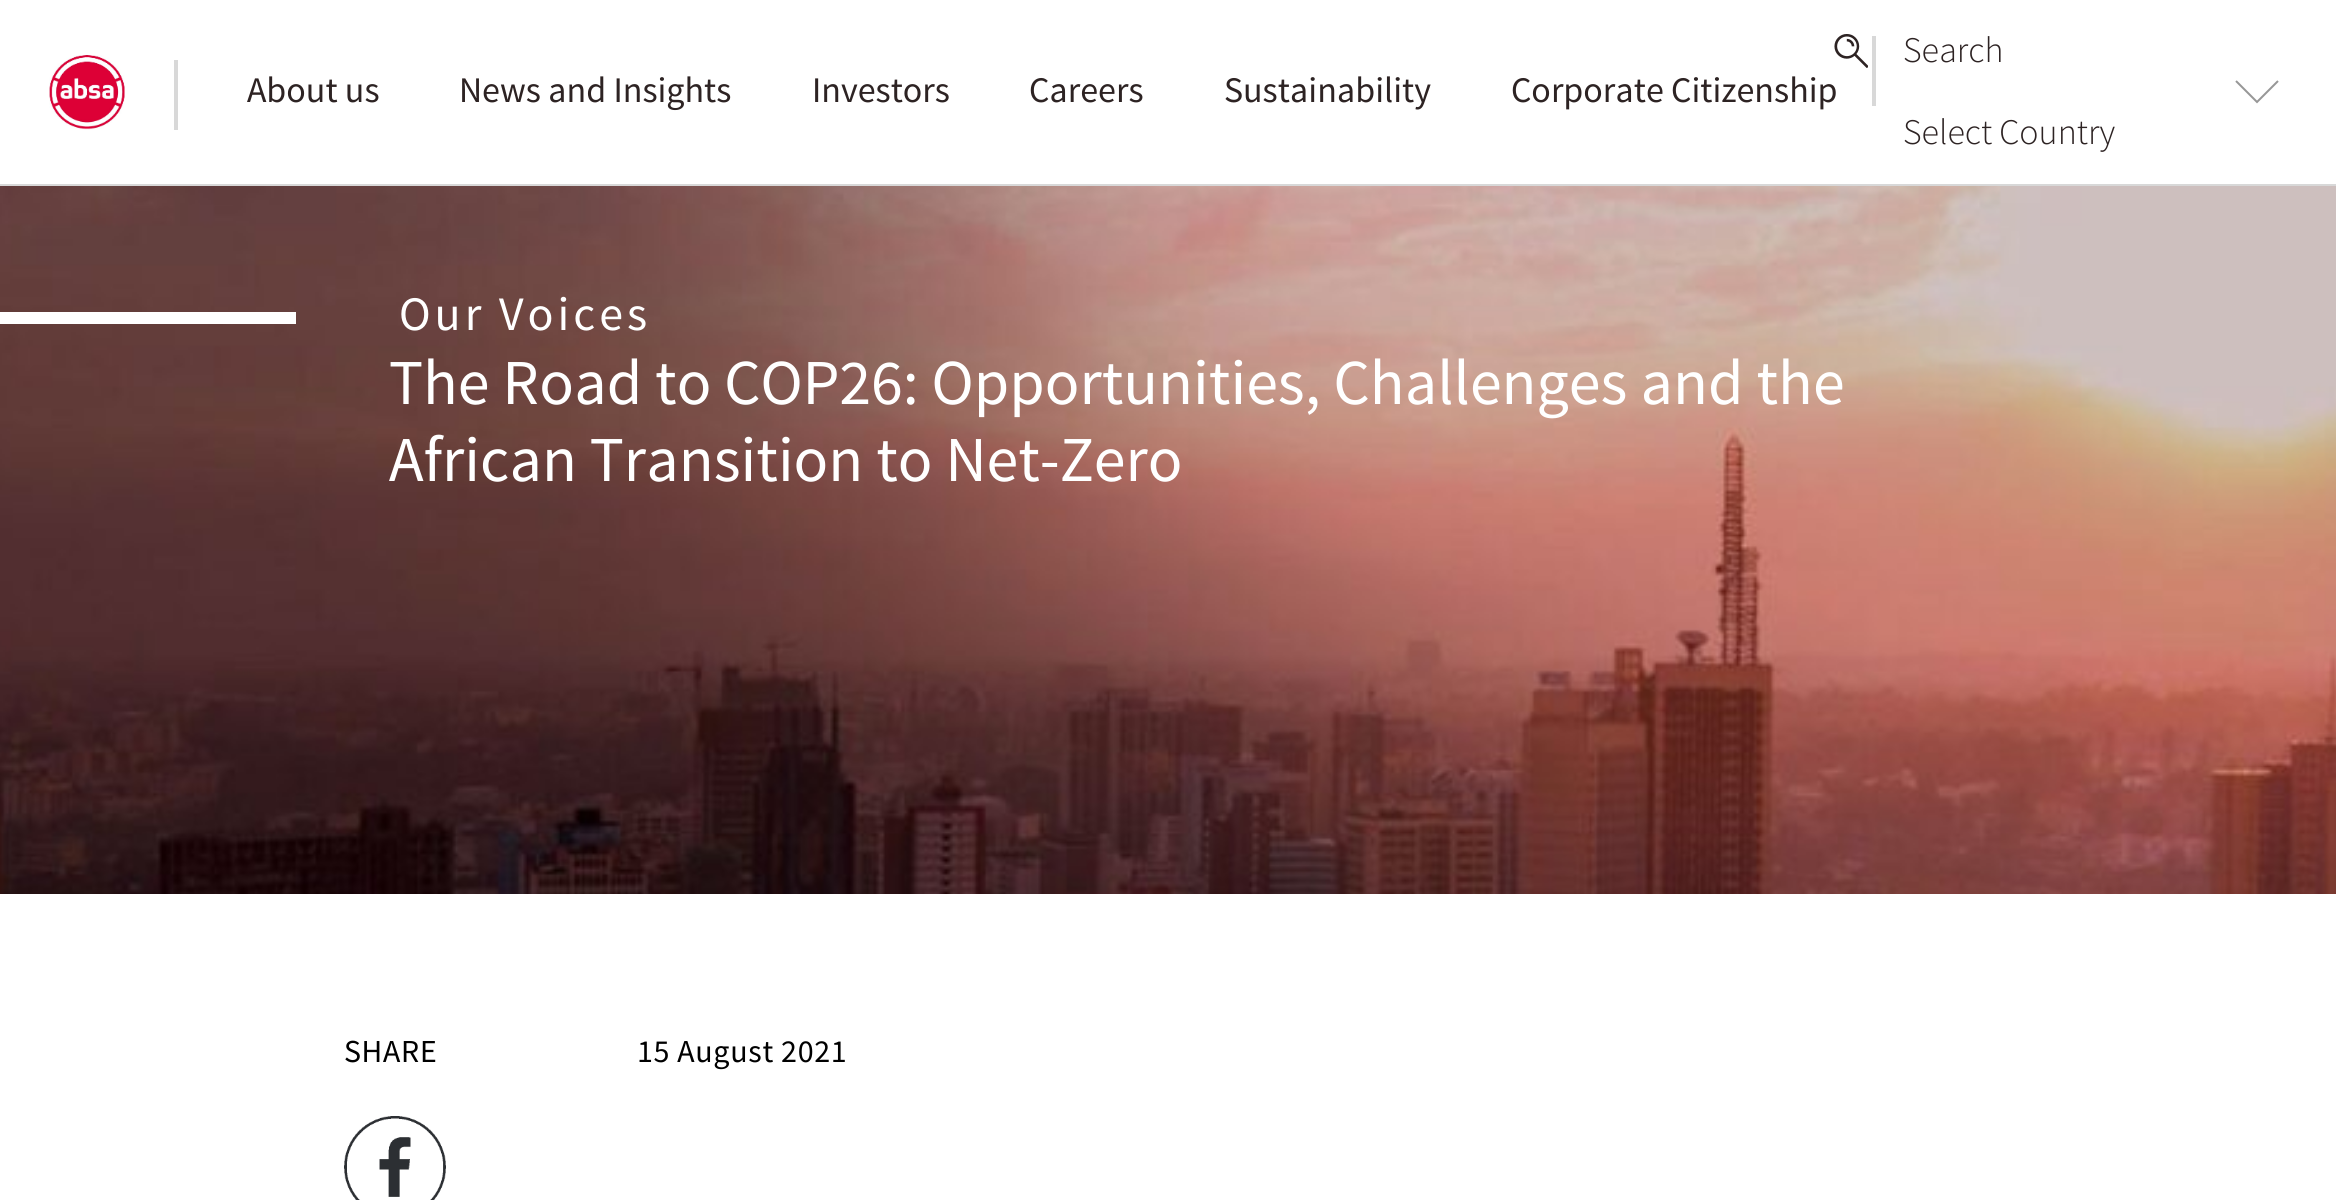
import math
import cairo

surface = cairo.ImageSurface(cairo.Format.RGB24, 2336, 1200)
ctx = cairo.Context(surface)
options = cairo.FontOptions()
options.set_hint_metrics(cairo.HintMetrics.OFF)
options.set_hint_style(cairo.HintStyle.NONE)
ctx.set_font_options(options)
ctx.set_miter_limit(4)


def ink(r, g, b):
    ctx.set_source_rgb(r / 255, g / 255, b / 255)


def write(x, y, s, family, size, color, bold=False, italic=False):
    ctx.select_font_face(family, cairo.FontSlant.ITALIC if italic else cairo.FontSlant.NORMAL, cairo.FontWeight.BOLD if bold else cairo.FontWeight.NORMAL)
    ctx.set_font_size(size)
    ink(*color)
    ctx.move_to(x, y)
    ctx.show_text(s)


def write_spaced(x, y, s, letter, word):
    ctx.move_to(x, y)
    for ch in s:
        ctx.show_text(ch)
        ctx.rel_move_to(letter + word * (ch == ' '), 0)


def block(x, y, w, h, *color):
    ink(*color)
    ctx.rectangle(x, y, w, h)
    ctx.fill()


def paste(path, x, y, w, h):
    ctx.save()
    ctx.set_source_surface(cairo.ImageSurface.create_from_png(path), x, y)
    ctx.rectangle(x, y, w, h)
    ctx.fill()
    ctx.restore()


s1 = dict(family="Source Sans Pro", size=36, color=(45, 35, 35))
s2 = dict(family="Source Sans Pro Light", size=36, color=(45, 35, 35))
s3 = dict(family="Source Sans Pro", size=64, color=(255, 255, 255))

ink(255, 255, 255)
ctx.paint()
block(0, 184, 2336, 2, 216, 216, 216)
paste("pic1.png", 49, 55, 76, 75)
block(174, 60, 4, 70, 216, 216, 216)
write(247, 102, "About us", **s1)
write(459, 102, "News and Insights", **s1)
write(812, 102, "Investors", **s1)
write(1029, 102, "Careers", **s1)
write(1224, 102, "Sustainability", **s1)
write(1511, 102, "Corporate Citizenship", **s1)
paste("pic2.png", 1834, 34, 34, 34)
write(1903, 62, "Search", **s2)
block(1872, 36, 4, 70, 216, 216, 216)
ctx.new_path()
ctx.move_to(2236, 81)
ctx.line_to(2257, 102)
ctx.line_to(2278, 81)
ink(151, 151, 151)
ctx.stroke()
write(1903, 144, "Select Country", **s2)
paste("pic3.png", 0, 186, 2336, 708)
block(0, 312, 296, 12, 255, 255, 255)
ctx.select_font_face("Source Sans Pro")
ctx.set_font_size(48)
write_spaced(399, 330, "Our Voices", 4, 0)
write(389, 404, "The Road to COP26: Opportunities, Challenges and the", **s3)
write(389, 481, "African Transition to Net-Zero", **s3)
ctx.set_font_size(32)
ink(0, 0, 0)
write_spaced(344, 1062, "SHARE", 0.7, 0)
paste("pic4.png", 344, 1116, 102, 84)
write_spaced(637, 1062, "15 August 2021", 0.7, 0)
surface.write_to_png("screenshot.png")
